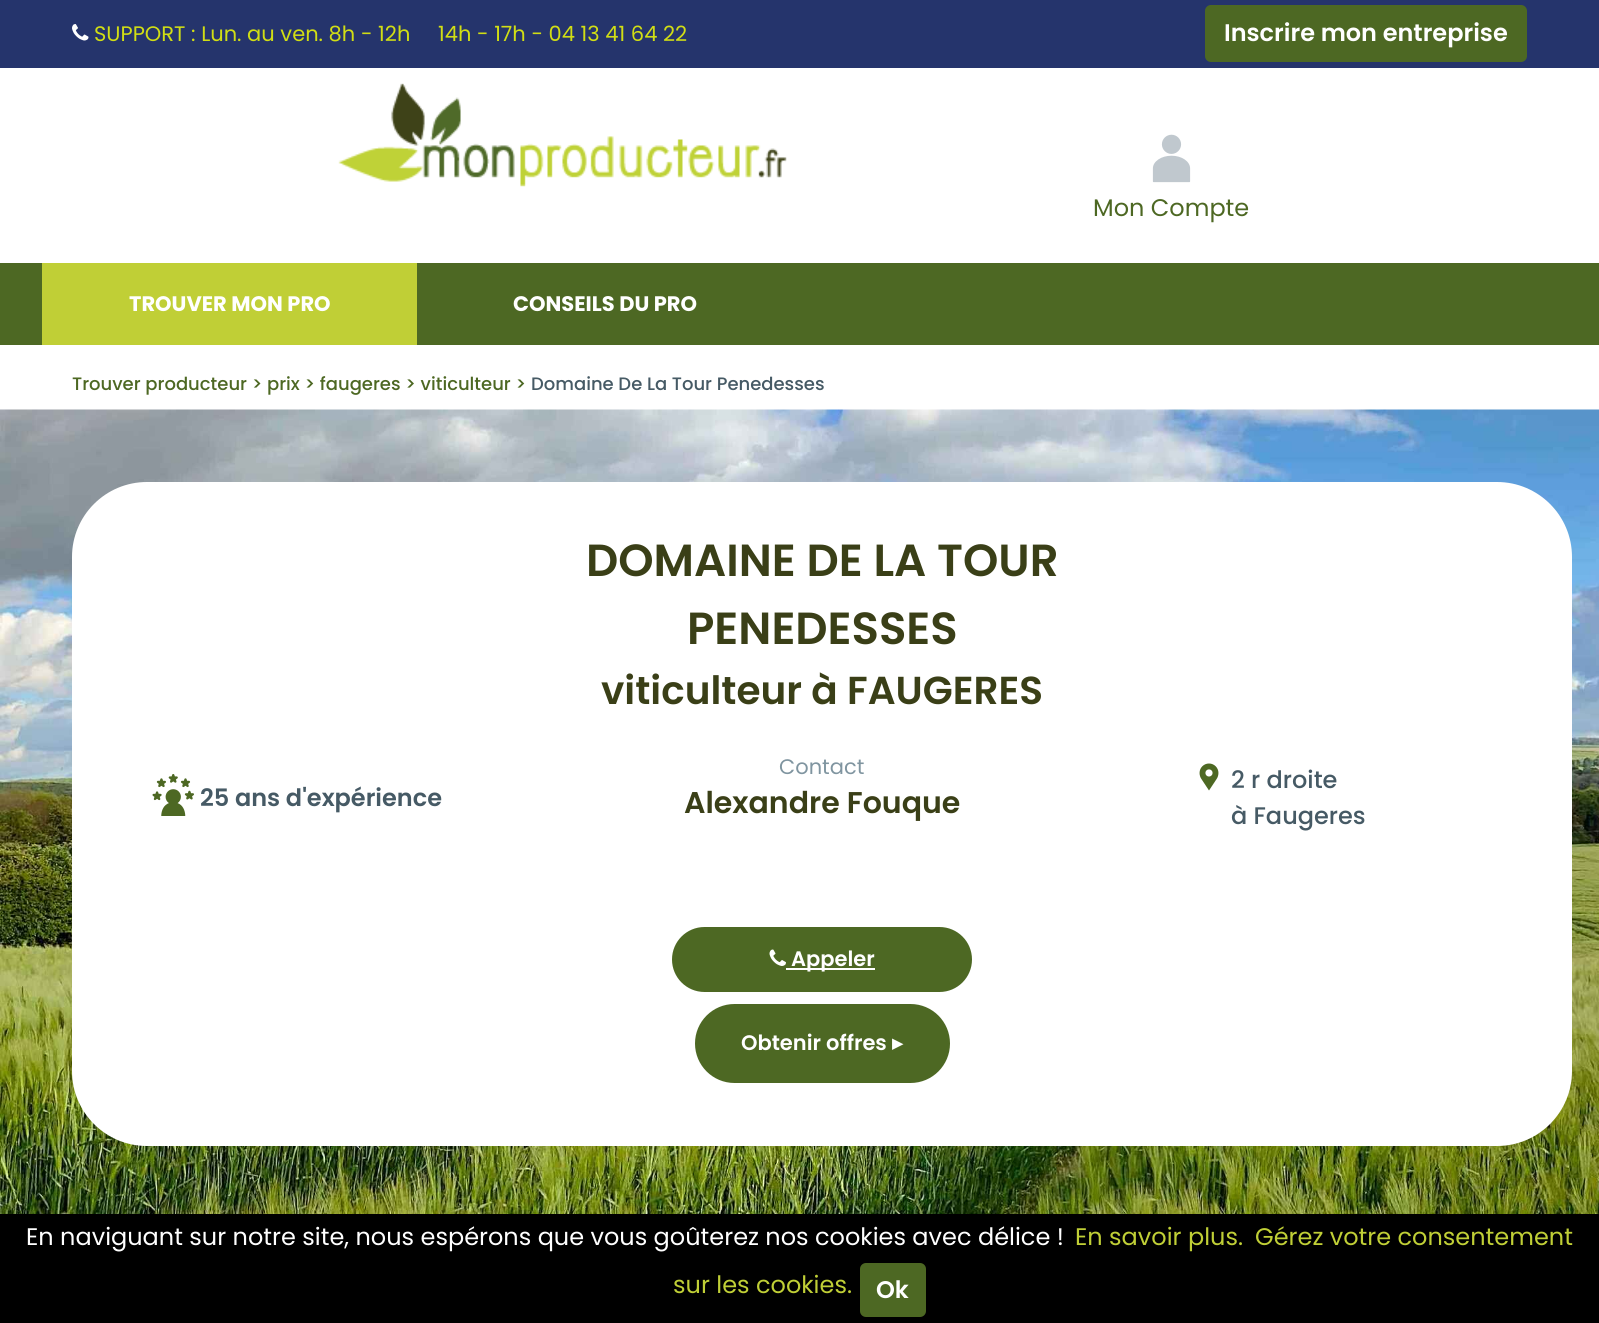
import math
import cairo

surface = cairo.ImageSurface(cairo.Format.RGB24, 1599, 1323)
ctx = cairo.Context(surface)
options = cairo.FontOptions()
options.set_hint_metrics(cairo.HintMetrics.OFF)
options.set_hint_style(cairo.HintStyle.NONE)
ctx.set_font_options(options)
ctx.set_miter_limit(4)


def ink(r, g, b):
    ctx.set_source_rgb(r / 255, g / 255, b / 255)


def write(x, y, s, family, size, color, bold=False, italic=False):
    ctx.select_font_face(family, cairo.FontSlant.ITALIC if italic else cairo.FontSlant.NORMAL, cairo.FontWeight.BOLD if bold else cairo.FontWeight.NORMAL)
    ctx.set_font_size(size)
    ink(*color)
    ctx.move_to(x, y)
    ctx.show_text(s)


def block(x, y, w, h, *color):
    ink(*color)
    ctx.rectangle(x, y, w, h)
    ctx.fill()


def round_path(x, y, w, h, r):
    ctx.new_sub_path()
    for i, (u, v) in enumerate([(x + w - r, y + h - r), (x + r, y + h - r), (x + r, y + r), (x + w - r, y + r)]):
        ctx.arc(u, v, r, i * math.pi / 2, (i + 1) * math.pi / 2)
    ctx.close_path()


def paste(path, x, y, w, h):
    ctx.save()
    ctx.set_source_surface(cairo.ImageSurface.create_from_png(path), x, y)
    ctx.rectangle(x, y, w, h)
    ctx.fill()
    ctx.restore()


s1 = dict(family="Poppins", size=21, color=(209, 222, 20))
s2 = dict(family="Poppins SemiBold", size=24, color=(255, 255, 255))
s3 = dict(family="Poppins", size=24, color=(77, 104, 35))
s4 = dict(family="Poppins", size=21, color=(255, 255, 255), bold=True)
s5 = dict(family="Poppins Medium", size=18, color=(77, 104, 35))
s6 = dict(family="Poppins Medium", size=18, color=(70, 90, 101))
s7 = dict(family="Poppins SemiBold", size=45, color=(58, 63, 23))
s8 = dict(family="Poppins SemiBold", size=39, color=(58, 63, 23))
s9 = dict(family="Poppins SemiBold", size=24, color=(70, 90, 101))
s10 = dict(family="Poppins", size=21, color=(128, 149, 160))
s11 = dict(family="Poppins SemiBold", size=30, color=(58, 63, 23))
s12 = dict(family="Poppins Medium", size=24, color=(70, 90, 101))
s13 = dict(family="Poppins SemiBold", size=21, color=(255, 255, 255))
s14 = dict(family="DejaVu Sans", size=21, color=(255, 255, 255), bold=True)
s15 = dict(family="Poppins", size=24, color=(255, 255, 255))
s16 = dict(family="Poppins", size=24, color=(192, 207, 54))

ink(255, 255, 255)
ctx.paint()
block(0, 0, 1599, 68, 37, 52, 108)
paste("pic1.png", 72, 24, 17, 17)
write(94, 41, "SUPPORT : Lun. au ven. 8h - 12h", **s1)
write(438, 41, "14h - 17h - 04 13 41 64 22", **s1)
ink(77, 104, 35)
round_path(1206, 6, 320, 55, 5)
ctx.fill_preserve()
ctx.stroke()
write(1224, 41, "Inscrire mon entreprise", **s2)
paste("pic2.png", 338, 83, 449, 104)
paste("pic3.png", 1152, 134, 39, 49)
write(1093, 216, "Mon Compte", **s3)
block(0, 263, 1599, 82, 77, 104, 35)
block(42, 263, 375, 82, 192, 207, 54)
write(129, 311, "TROUVER MON PRO", **s4)
write(513, 311, "CONSEILS DU PRO", **s4)
write(72, 390, "Trouver producteur > prix > faugeres > viticulteur >", **s5)
write(531, 390, "Domaine De La Tour Penedesses", **s6)
paste("pic4.png", 0, 409, 1599, 805)
ink(255, 255, 255)
round_path(72, 482, 1500, 664, 75)
ctx.fill()
write(586, 576, "DOMAINE DE LA TOUR", **s7)
write(687, 644, "PENEDESSES", **s7)
write(601, 704, "viticulteur à FAUGERES", **s8)
paste("pic5.png", 152, 774, 42, 42)
write(200, 806, "25 ans d'expérience", **s9)
write(779, 774, "Contact", **s10)
write(684, 813, "Alexandre Fouque", **s11)
paste("pic6.png", 1199, 763, 20, 28)
write(1231, 788, "2 r droite", **s12)
write(1231, 824, "à Faugeres", **s12)
ink(77, 104, 35)
round_path(673, 928, 298, 63, 31.5)
ctx.fill_preserve()
ctx.stroke()
paste("pic7.png", 769, 949, 17, 17)
block(786, 968, 89, 2, 255, 255, 255)
write(791, 966, "Appeler", **s13)
ink(77, 104, 35)
round_path(696, 1005, 253, 77, 38.5)
ctx.fill_preserve()
ctx.stroke()
write(741, 1050, "Obtenir offres", **s13)
write(892, 1050, "▸", **s14)
block(0, 1214, 1599, 109, 0, 0, 0)
write(26, 1245, "En naviguant sur notre site, nous espérons que vous goûterez nos cookies avec délice !", **s15)
write(1075, 1245, "En savoir plus.", **s16)
write(1255, 1245, "Gérez votre consentement", **s16)
write(673, 1293, "sur les cookies.", **s16)
ink(77, 104, 35)
round_path(861, 1264, 64, 52, 5)
ctx.fill_preserve()
ctx.stroke()
write(876, 1298, "Ok", **s2)
surface.write_to_png("screenshot.png")
